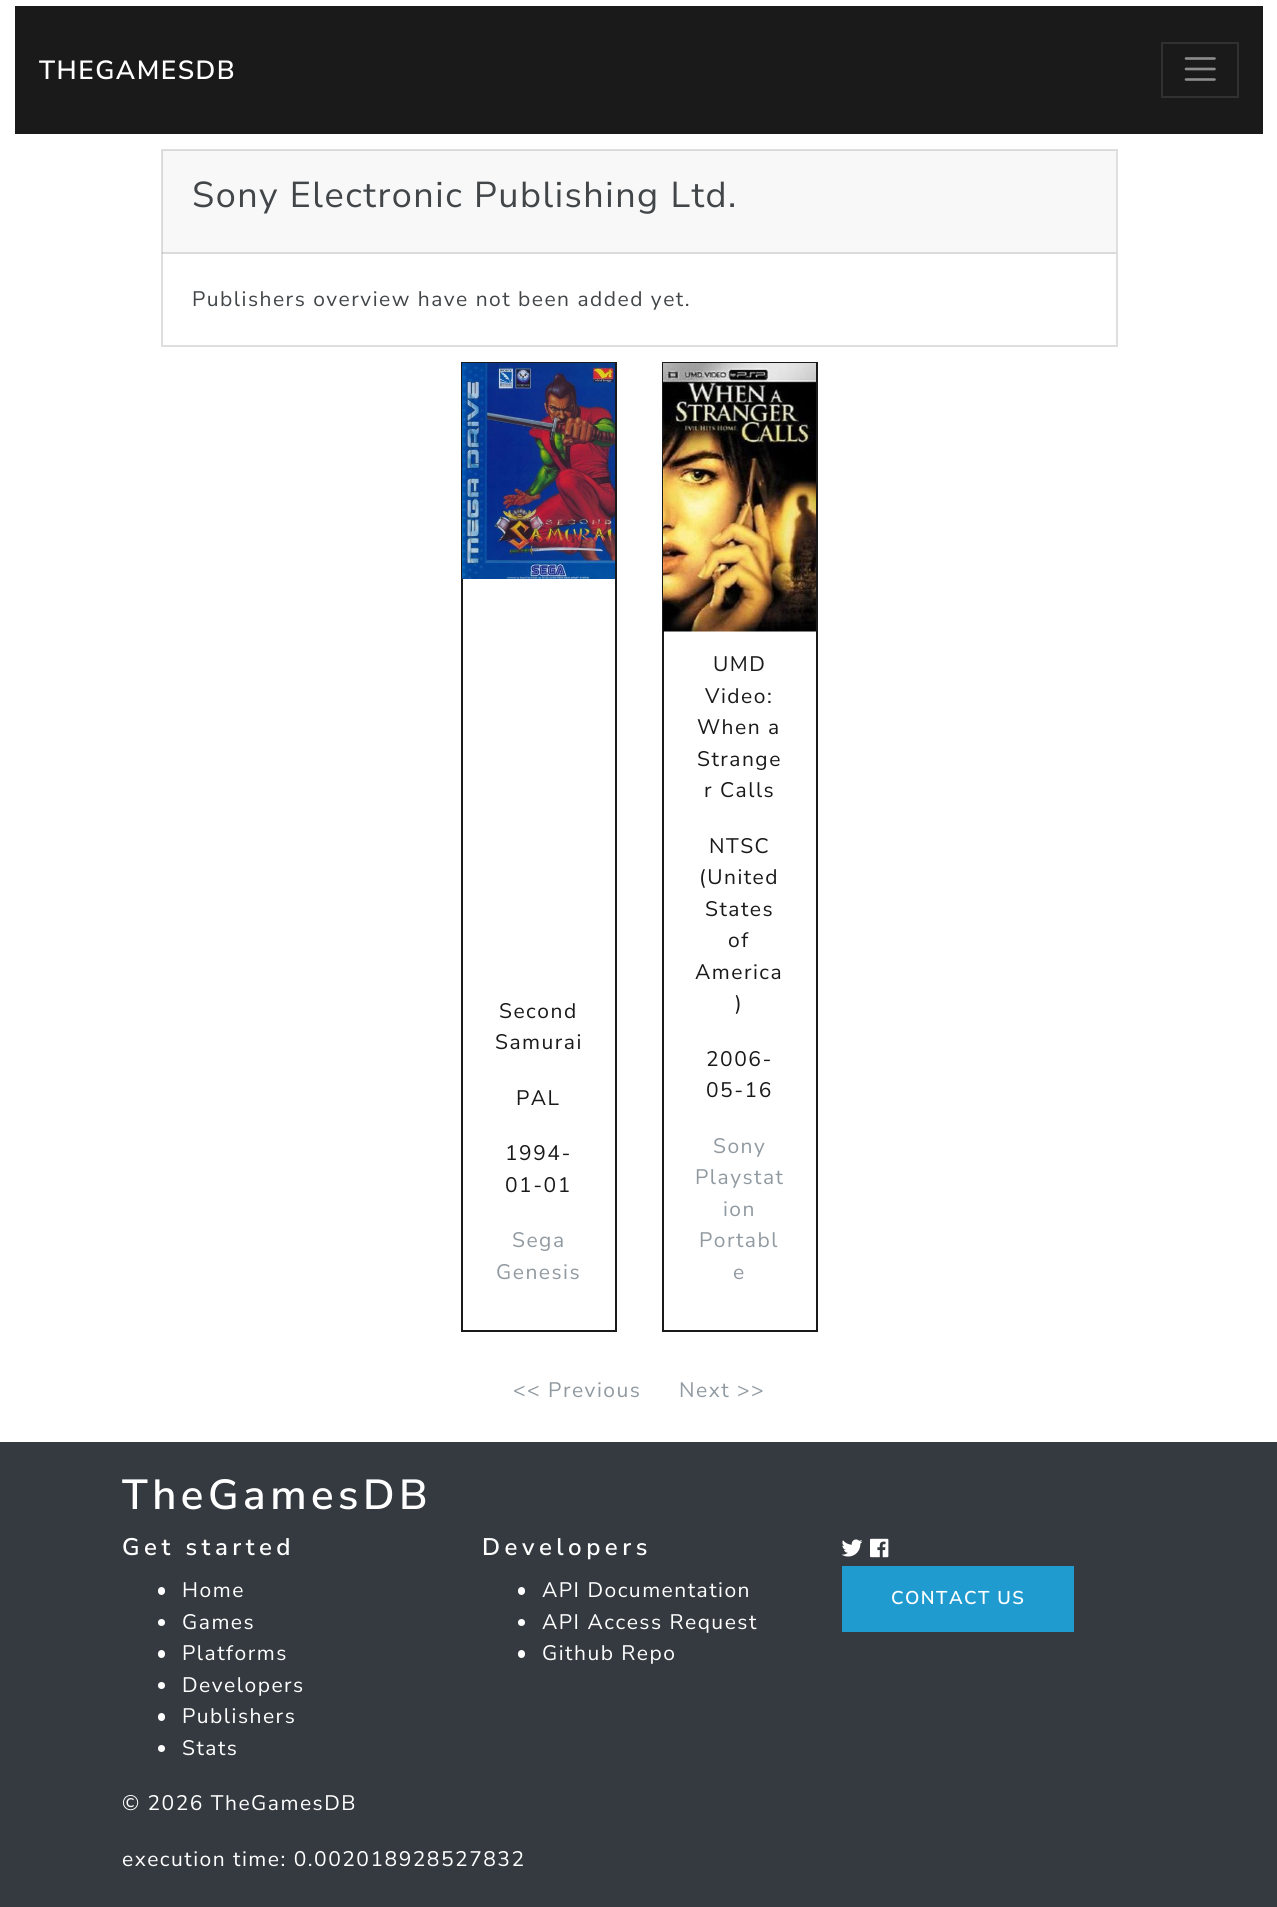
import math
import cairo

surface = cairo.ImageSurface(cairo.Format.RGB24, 1277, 1907)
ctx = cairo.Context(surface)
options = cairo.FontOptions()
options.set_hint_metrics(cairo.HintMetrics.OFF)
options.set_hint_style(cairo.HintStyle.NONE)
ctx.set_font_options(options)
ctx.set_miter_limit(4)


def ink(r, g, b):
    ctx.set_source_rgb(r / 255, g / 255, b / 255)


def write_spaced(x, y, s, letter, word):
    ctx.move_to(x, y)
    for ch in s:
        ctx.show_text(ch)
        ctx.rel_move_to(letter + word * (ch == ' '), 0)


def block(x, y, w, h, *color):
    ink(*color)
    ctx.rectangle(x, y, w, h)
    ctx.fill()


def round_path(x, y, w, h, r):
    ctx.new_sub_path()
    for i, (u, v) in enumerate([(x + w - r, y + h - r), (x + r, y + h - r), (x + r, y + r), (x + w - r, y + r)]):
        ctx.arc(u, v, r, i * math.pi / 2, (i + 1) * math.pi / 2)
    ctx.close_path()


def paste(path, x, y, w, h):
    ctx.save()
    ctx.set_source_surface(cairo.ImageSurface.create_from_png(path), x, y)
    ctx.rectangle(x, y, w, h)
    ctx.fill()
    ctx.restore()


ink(255, 255, 255)
ctx.paint()
block(15, 6, 1248, 128, 26, 26, 26)
ctx.select_font_face("Nunito Sans SemiBold")
ctx.set_font_size(26.25)
ink(255, 255, 255)
write_spaced(39, 79, "THEGAMESDB", 1.5, 0)
ctx.rectangle(1162, 43, 76, 54)
ink(49, 49, 49)
ctx.stroke()
ctx.new_path()
ctx.move_to(1186, 58.5)
ctx.line_to(1214.5, 58.5)
ctx.move_to(1186, 69)
ctx.line_to(1214.5, 69)
ctx.move_to(1186, 79.5)
ctx.line_to(1214.5, 79.5)
ink(141, 141, 141)
ctx.set_line_width(2.6)
ctx.set_line_cap(cairo.LineCap.ROUND)
ctx.stroke()
ctx.rectangle(162, 150, 955, 196)
ink(223, 223, 223)
ctx.set_line_width(2)
ctx.set_line_cap(cairo.LineCap.BUTT)
ctx.stroke()
ctx.set_source_rgba(0, 0, 0, 0.03)
ctx.rectangle(162, 150, 954, 104)
ctx.fill()
ctx.set_source_rgba(0, 0, 0, 0.12)
ctx.rectangle(162, 252, 954, 2)
ctx.fill()
ctx.select_font_face("Nunito Sans")
ctx.set_font_size(36)
ink(66, 70, 73)
write_spaced(192, 207, "Sony Electronic Publishing Ltd.", 1.5, 0)
ctx.set_font_size(21)
write_spaced(192, 306, "Publishers overview have not been added yet.", 1.5, 0)
ctx.rectangle(462, 363, 154, 968)
ink(26, 26, 26)
ctx.stroke()
paste("pic1.png", 462, 363, 153, 216)
write_spaced(499, 1018, "Second", 1.5, 0)
write_spaced(495, 1049, "Samurai", 1.5, 0)
write_spaced(516, 1105, "PAL", 1.5, 0)
write_spaced(505, 1160, "1994-", 1.5, 0)
write_spaced(505, 1192, "01-01", 1.5, 0)
ink(145, 154, 161)
write_spaced(512, 1247, "Sega", 1.5, 0)
write_spaced(496, 1279, "Genesis", 1.5, 0)
ctx.rectangle(663, 363, 154, 968)
ink(26, 26, 26)
ctx.stroke()
paste("pic2.png", 663, 363, 153, 269)
write_spaced(713, 671, "UMD", 1.5, 0)
write_spaced(705, 703, "Video:", 1.5, 0)
write_spaced(697, 734, "When a", 1.5, 0)
write_spaced(697, 766, "Strange", 1.5, 0)
write_spaced(704, 797, "r Calls", 1.5, 0)
write_spaced(709, 853, "NTSC", 1.5, 0)
write_spaced(699, 884, "(United", 1.5, 0)
write_spaced(705, 916, "States", 1.5, 0)
write_spaced(728, 947, "of", 1.5, 0)
write_spaced(695, 979, "America", 1.5, 0)
write_spaced(735, 1010, ")", 1.5, 0)
write_spaced(706, 1066, "2006-", 1.5, 0)
write_spaced(706, 1097, "05-16", 1.5, 0)
ink(145, 154, 161)
write_spaced(713, 1153, "Sony", 1.5, 0)
write_spaced(695, 1184, "Playstat", 1.5, 0)
write_spaced(723, 1216, "ion", 1.5, 0)
write_spaced(699, 1247, "Portabl", 1.5, 0)
write_spaced(733, 1279, "e", 1.5, 0)
write_spaced(513, 1397, "<< Previous", 1.5, 0)
write_spaced(679, 1397, "Next >>", 1.5, 0)
block(0, 1442, 1277, 465, 52, 58, 64)
ctx.select_font_face("Nunito Sans SemiBold")
ctx.set_font_size(42)
ink(255, 255, 255)
write_spaced(122, 1509, "TheGamesDB", 4.5, 0)
ctx.set_font_size(24)
write_spaced(122, 1555, "Get started", 4.5, 0)
round_path(158, 1587, 7, 8, 3.5)
ctx.fill()
ctx.select_font_face("Nunito Sans")
ctx.set_font_size(21)
write_spaced(182, 1597, "Home", 1.5, 0)
ctx.new_path()
ctx.arc(161.5, 1622.5, 3.5, 0, 2 * math.pi)
ctx.fill()
write_spaced(182, 1629, "Games", 1.5, 0)
round_path(158, 1650, 7, 8, 3.5)
ctx.fill()
write_spaced(182, 1660, "Platforms", 1.5, 0)
ctx.new_path()
ctx.arc(161.5, 1685.5, 3.5, 0, 2 * math.pi)
ctx.fill()
write_spaced(182, 1692, "Developers", 1.5, 0)
round_path(158, 1713, 7, 8, 3.5)
ctx.fill()
write_spaced(182, 1723, "Publishers", 1.5, 0)
ctx.new_path()
ctx.arc(161.5, 1748.5, 3.5, 0, 2 * math.pi)
ctx.fill()
write_spaced(182, 1755, "Stats", 1.5, 0)
ctx.select_font_face("Nunito Sans SemiBold")
ctx.set_font_size(24)
write_spaced(482, 1555, "Developers", 4.5, 0)
round_path(518, 1587, 7, 8, 3.5)
ctx.fill()
ctx.select_font_face("Nunito Sans")
ctx.set_font_size(21)
write_spaced(542, 1597, "API Documentation", 1.5, 0)
ctx.new_path()
ctx.arc(521.5, 1622.5, 3.5, 0, 2 * math.pi)
ctx.fill()
write_spaced(542, 1629, "API Access Request", 1.5, 0)
round_path(518, 1650, 7, 8, 3.5)
ctx.fill()
write_spaced(542, 1660, "Github Repo", 1.5, 0)
paste("pic3.png", 841, 1539, 22, 18)
paste("pic4.png", 870, 1538, 19, 20)
block(842, 1566, 232, 66, 31, 155, 207)
ctx.select_font_face("Nunito Sans SemiBold")
ctx.set_font_size(18.5)
ink(255, 255, 255)
write_spaced(891, 1604, "CONTACT US", 1.5, 0)
ctx.select_font_face("Nunito Sans")
ctx.set_font_size(21)
write_spaced(122, 1810, "© 2026 TheGamesDB", 1.5, 0)
write_spaced(122, 1866, "execution time: 0.002018928527832", 1.5, 0)
surface.write_to_png("screenshot.png")
